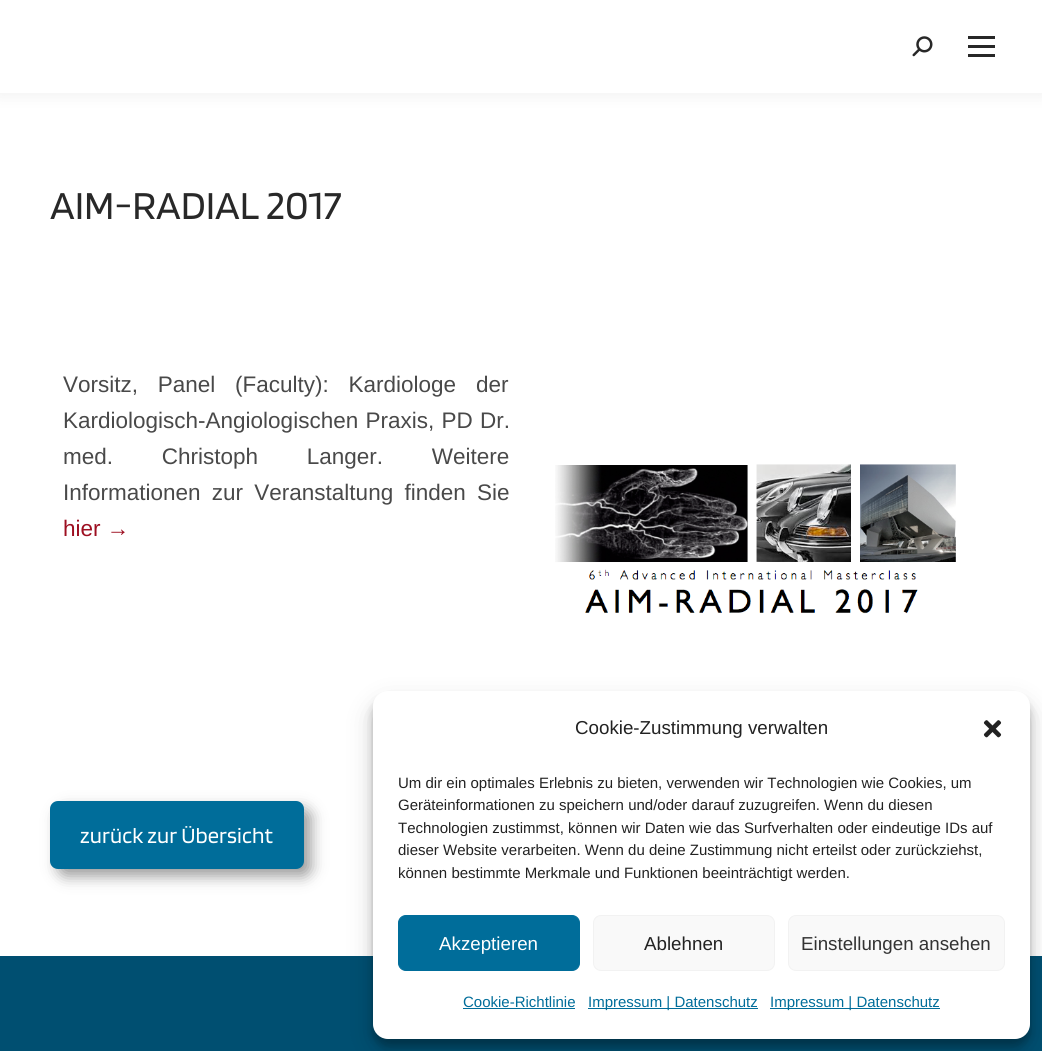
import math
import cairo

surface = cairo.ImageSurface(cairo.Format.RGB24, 1042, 1051)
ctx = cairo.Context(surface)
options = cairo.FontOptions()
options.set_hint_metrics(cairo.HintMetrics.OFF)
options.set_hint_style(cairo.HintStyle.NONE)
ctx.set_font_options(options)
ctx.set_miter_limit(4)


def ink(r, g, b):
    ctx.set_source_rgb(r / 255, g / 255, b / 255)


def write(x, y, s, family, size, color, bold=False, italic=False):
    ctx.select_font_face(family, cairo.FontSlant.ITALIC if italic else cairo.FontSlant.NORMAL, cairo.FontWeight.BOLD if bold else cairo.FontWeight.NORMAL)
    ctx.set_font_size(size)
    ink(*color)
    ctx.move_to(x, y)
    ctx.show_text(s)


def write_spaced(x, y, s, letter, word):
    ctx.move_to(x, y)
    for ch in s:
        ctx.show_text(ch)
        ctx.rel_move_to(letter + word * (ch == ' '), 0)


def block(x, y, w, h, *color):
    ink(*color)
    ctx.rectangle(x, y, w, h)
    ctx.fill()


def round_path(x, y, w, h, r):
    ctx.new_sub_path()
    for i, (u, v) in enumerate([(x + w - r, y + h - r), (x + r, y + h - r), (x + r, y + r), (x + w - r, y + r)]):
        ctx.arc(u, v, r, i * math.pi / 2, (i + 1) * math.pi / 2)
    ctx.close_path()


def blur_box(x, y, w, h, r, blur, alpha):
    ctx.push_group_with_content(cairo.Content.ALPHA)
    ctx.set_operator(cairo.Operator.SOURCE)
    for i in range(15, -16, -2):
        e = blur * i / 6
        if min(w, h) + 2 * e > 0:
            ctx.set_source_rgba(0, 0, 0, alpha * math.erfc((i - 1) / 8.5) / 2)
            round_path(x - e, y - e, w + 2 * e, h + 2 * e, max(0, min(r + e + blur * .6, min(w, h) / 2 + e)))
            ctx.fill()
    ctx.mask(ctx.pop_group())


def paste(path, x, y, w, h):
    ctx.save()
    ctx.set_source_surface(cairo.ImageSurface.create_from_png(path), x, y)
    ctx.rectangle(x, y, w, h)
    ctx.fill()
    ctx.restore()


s1 = dict(family="Blinker", size=41.25, color=(40, 40, 40))
s2 = dict(family="Liberation Sans", size=22.5, color=(157, 15, 33))
s3 = dict(family="Liberation Sans", size=18.75, color=(34, 34, 34))
s4 = dict(family="Liberation Sans", size=15, color=(34, 34, 34))
s5 = dict(family="Liberation Sans", size=18.75, color=(255, 255, 255))
s6 = dict(family="Liberation Sans", size=18.75, color=(51, 51, 51))
s7 = dict(family="Liberation Sans", size=15, color=(0, 109, 154))

ink(255, 255, 255)
ctx.paint()
ink(0, 0, 0)
blur_box(-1, -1, 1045, 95, 0, 9.5, 0.07)
block(0, 0, 1042, 93, 255, 255, 255)
paste("pic1.png", 912, 36, 21, 21)
block(968, 36, 27, 3, 40, 40, 40)
block(968, 45, 27, 3, 40, 40, 40)
block(968, 54, 27, 3, 40, 40, 40)
write(50, 219, "AIM-RADIAL 2017", **s1)
ctx.select_font_face("Liberation Sans")
ctx.set_font_size(22.5)
ink(73, 73, 73)
write_spaced(63, 392, "Vorsitz, Panel (Faculty): Kardiologe der", 0, 13.5)
write_spaced(63, 428, "Kardiologisch-Angiologischen Praxis, PD Dr.", 0, 1)
write_spaced(63, 464, "med. Christoph Langer. Weitere", 0, 42.5)
write_spaced(63, 500, "Informationen zur Veranstaltung finden Sie", 0, 5)
write(63, 536, "hier →", **s2)
paste("pic2.png", 555, 464, 401, 150)
ink(0, 0, 0)
blur_box(58, 809, 253, 67, 8, 7.5, 0.4)
ink(0, 109, 154)
round_path(50, 801, 254, 68, 8)
ctx.fill()
ctx.select_font_face("Blinker")
ink(255, 255, 255)
write_spaced(80, 843, "zurück zur Übersicht", 0.1, 0)
block(0, 956, 1042, 95, 0, 79, 113)
ink(0, 0, 0)
blur_box(373, 699, 657, 347, 15, 4, 0.23)
blur_box(373, 704, 657, 347, 15, 12.5, 0.19)
ink(255, 255, 255)
round_path(373, 691, 657, 348, 15)
ctx.fill()
write(575, 734, "Cookie-Zustimmung verwalten", **s3)
paste("pic3.png", 983, 720, 19, 18)
write(398, 788, "Um dir ein optimales Erlebnis zu bieten, verwenden wir Technologien wie Cookies, um", **s4)
write(398, 810, "Geräteinformationen zu speichern und/oder darauf zuzugreifen. Wenn du diesen", **s4)
write(398, 833, "Technologien zustimmst, können wir Daten wie das Surfverhalten oder eindeutige IDs auf", **s4)
write(398, 855, "dieser Website verarbeiten. Wenn du deine Zustimmung nicht erteilst oder zurückziehst,", **s4)
write(398, 878, "können bestimmte Merkmale und Funktionen beeinträchtigt werden.", **s4)
ink(0, 109, 154)
round_path(398.5, 915.5, 181, 55, 7.5)
ctx.fill_preserve()
ctx.set_line_width(1)
ctx.stroke()
write(439, 950, "Akzeptieren", **s5)
ink(249, 249, 249)
round_path(593.5, 915.5, 181, 55, 7.5)
ctx.fill_preserve()
ink(242, 242, 242)
ctx.stroke()
write(644, 950, "Ablehnen", **s3)
ink(249, 249, 249)
round_path(788.5, 915.5, 216, 55, 7.5)
ctx.fill_preserve()
ink(242, 242, 242)
ctx.stroke()
write(801, 950, "Einstellungen ansehen", **s6)
write(463, 1007, "Cookie-Richtlinie", **s7)
block(463, 1008, 112, 1, 0, 109, 154)
block(588, 1008, 170, 1, 0, 109, 154)
write(588, 1007, "Impressum | Datenschutz", **s7)
block(770, 1008, 170, 1, 0, 109, 154)
write(770, 1007, "Impressum | Datenschutz", **s7)
surface.write_to_png("screenshot.png")
